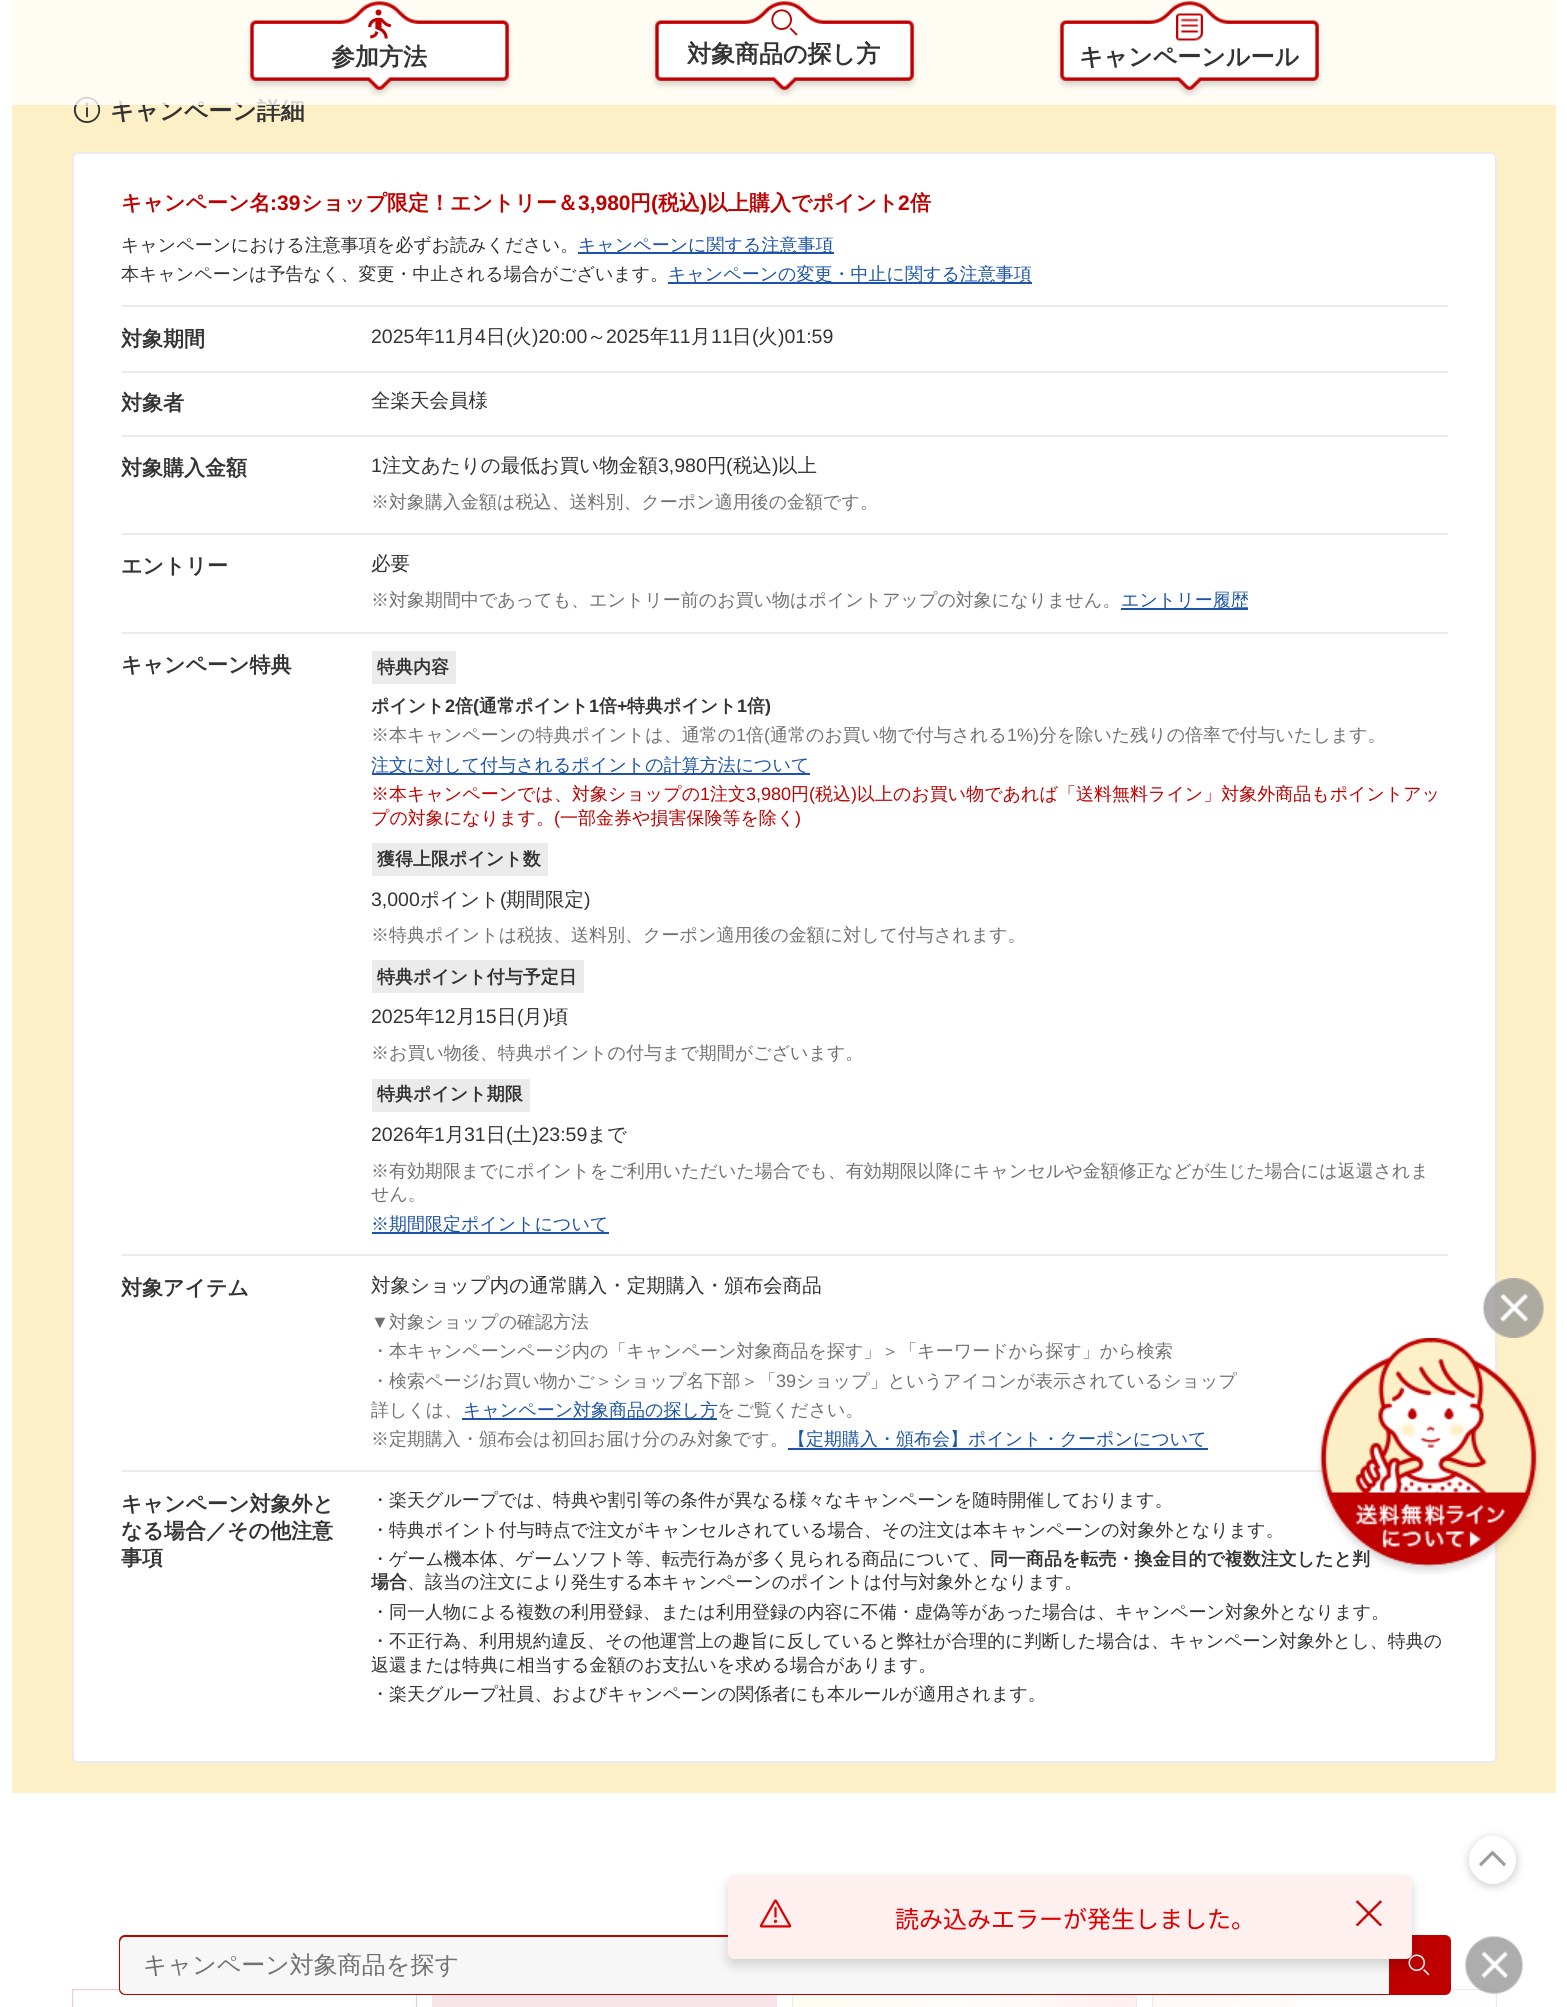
import math
import cairo

surface = cairo.ImageSurface(cairo.Format.RGB24, 1567, 2007)
ctx = cairo.Context(surface)
options = cairo.FontOptions()
options.set_hint_metrics(cairo.HintMetrics.OFF)
options.set_hint_style(cairo.HintStyle.NONE)
ctx.set_font_options(options)
ctx.set_miter_limit(4)


def ink(r, g, b):
    ctx.set_source_rgb(r / 255, g / 255, b / 255)


def write(x, y, s, family, size, color, bold=False, italic=False):
    ctx.select_font_face(family, cairo.FontSlant.ITALIC if italic else cairo.FontSlant.NORMAL, cairo.FontWeight.BOLD if bold else cairo.FontWeight.NORMAL)
    ctx.set_font_size(size)
    ink(*color)
    ctx.move_to(x, y)
    ctx.show_text(s)


def block(x, y, w, h, *color):
    ink(*color)
    ctx.rectangle(x, y, w, h)
    ctx.fill()


def round_path(x, y, w, h, r):
    ctx.new_sub_path()
    for i, (u, v) in enumerate([(x + w - r, y + h - r), (x + r, y + h - r), (x + r, y + r), (x + w - r, y + r)]):
        ctx.arc(u, v, r, i * math.pi / 2, (i + 1) * math.pi / 2)
    ctx.close_path()


def blur_box(x, y, w, h, r, blur, alpha):
    ctx.push_group_with_content(cairo.Content.ALPHA)
    ctx.set_operator(cairo.Operator.SOURCE)
    for i in range(15, -16, -2):
        e = blur * i / 6
        if min(w, h) + 2 * e > 0:
            ctx.set_source_rgba(0, 0, 0, alpha * math.erfc((i - 1) / 8.5) / 2)
            round_path(x - e, y - e, w + 2 * e, h + 2 * e, max(0, min(r + e + blur * .6, min(w, h) / 2 + e)))
            ctx.fill()
    ctx.mask(ctx.pop_group())


def paste(path, x, y, w, h):
    ctx.save()
    ctx.set_source_surface(cairo.ImageSurface.create_from_png(path), x, y)
    ctx.rectangle(x, y, w, h)
    ctx.fill()
    ctx.restore()


s1 = dict(family="WenQuanYi Zen Hei", size=24, color=(51, 51, 51), bold=True)
s2 = dict(family="WenQuanYi Zen Hei", size=21, color=(191, 0, 0), bold=True)
s3 = dict(family="Liberation Sans", size=21, color=(191, 0, 0), bold=True)
s4 = dict(family="WenQuanYi Zen Hei Medium", size=18, color=(51, 51, 51))
s5 = dict(family="WenQuanYi Zen Hei Medium", size=18, color=(29, 84, 167))
s6 = dict(family="WenQuanYi Zen Hei", size=21, color=(51, 51, 51), bold=True)
s7 = dict(family="Liberation Sans", size=19.5, color=(51, 51, 51))
s8 = dict(family="WenQuanYi Zen Hei Medium", size=19.5, color=(51, 51, 51))
s9 = dict(family="WenQuanYi Zen Hei Medium", size=18, color=(113, 113, 113))
s10 = dict(family="WenQuanYi Zen Hei", size=18, color=(51, 51, 51), bold=True)
s11 = dict(family="Liberation Sans", size=18, color=(51, 51, 51), bold=True)
s12 = dict(family="Liberation Sans", size=18, color=(113, 113, 113))
s13 = dict(family="WenQuanYi Zen Hei Medium", size=18, color=(191, 0, 0))
s14 = dict(family="Liberation Sans", size=18, color=(191, 0, 0))
s15 = dict(family="WenQuanYi Zen Hei Medium", size=24, color=(113, 113, 113))
s16 = dict(family="Noto Sans CJK JP", size=24, color=(223, 1, 1))

ink(255, 255, 255)
ctx.paint()
block(12, 0, 1544, 1793, 254, 240, 198)
paste("pic7.png", 73, 96, 28, 27)
write(110, 119, "キャンペーン詳細", **s1)
ctx.set_source_rgba(1, 1, 1, 0.8)
ctx.rectangle(12, 0, 1544, 105)
ctx.fill()
paste("pic1.png", 247, 1, 266, 96)
paste("pic2.png", 368, 9, 23, 30)
write(331, 65, "参加方法", **s1)
paste("pic3.png", 652, 1, 266, 96)
paste("pic4.png", 771, 9, 27, 27)
write(687, 62, "対象商品の探し方", **s1)
paste("pic5.png", 1057, 1, 266, 96)
paste("pic6.png", 1176, 13, 27, 28)
write(1079, 65, "キャンペーンルール", **s1)
ink(255, 255, 255)
round_path(72, 152, 1425, 1611, 6)
ctx.fill()
round_path(73, 153, 1423, 1609, 5)
ctx.set_source_rgba(0, 0, 0, 0.08)
ctx.stroke()
write(121, 210, "キャンペーン名", **s2)
write(270, 210, ":39", **s3)
write(301, 210, "ショップ限定！エントリー＆", **s2)
write(578, 210, "3,980", **s3)
write(630, 210, "円", **s2)
write(651, 210, "(", **s3)
write(658, 210, "税込", **s2)
write(700, 210, ")", **s3)
write(707, 210, "以上購入でポイント", **s2)
write(898, 210, "2", **s3)
write(910, 210, "倍", **s2)
write(121, 251, "キャンペーンにおける注意事項を必ずお読みください。", **s4)
block(578, 252, 256, 2, 29, 84, 167)
write(578, 251, "キャンペーンに関する注意事項", **s5)
write(121, 280, "本キャンペーンは予告なく、変更・中止される場合がございます。", **s4)
block(668, 282, 364, 2, 29, 84, 167)
write(668, 280, "キャンペーンの変更・中止に関する注意事項", **s5)
block(122, 305, 1326, 2, 235, 235, 235)
write(121, 346, "対象期間", **s6)
write(371, 343, "2025", **s7)
write(415, 343, "年", **s8)
write(434, 343, "11", **s7)
write(456, 343, "月", **s8)
write(475, 343, "4", **s7)
write(486, 343, "日", **s8)
write(506, 343, "(", **s7)
write(512, 343, "火", **s8)
write(532, 343, ")20:00", **s7)
write(587, 343, "～", **s8)
write(606, 343, "2025", **s7)
write(650, 343, "年", **s8)
write(669, 343, "11", **s7)
write(691, 343, "月", **s8)
write(711, 343, "11", **s7)
write(732, 343, "日", **s8)
write(752, 343, "(", **s7)
write(758, 343, "火", **s8)
write(778, 343, ")01:59", **s7)
block(122, 371, 1326, 2, 235, 235, 235)
write(121, 410, "対象者", **s6)
write(371, 407, "全楽天会員様", **s8)
block(122, 435, 1326, 2, 235, 235, 235)
write(121, 475, "対象購入金額", **s6)
write(371, 472, "1", **s7)
write(382, 472, "注文あたりの最低お買い物金額", **s8)
write(658, 472, "3,980", **s7)
write(707, 472, "円", **s8)
write(726, 472, "(", **s7)
write(733, 472, "税込", **s8)
write(772, 472, ")", **s7)
write(778, 472, "以上", **s8)
write(371, 508, "※対象購入金額は税込、送料別、クーポン適用後の金額です。", **s9)
block(122, 533, 1326, 2, 235, 235, 235)
write(121, 573, "エントリー", **s6)
write(371, 570, "必要", **s8)
write(371, 606, "※対象期間中であっても、エントリー前のお買い物はポイントアップの対象になりません。", **s9)
block(1121, 608, 127, 2, 29, 84, 167)
write(1121, 606, "エントリー履歴", **s5)
block(122, 632, 1326, 2, 235, 235, 235)
write(121, 672, "キャンペーン特典", **s6)
block(372, 651, 84, 33, 235, 235, 235)
write(377, 673, "特典内容", **s10)
write(371, 712, "ポイント", **s10)
write(445, 712, "2", **s11)
write(455, 712, "倍", **s10)
write(473, 712, "(", **s11)
write(479, 712, "通常ポイント", **s10)
write(589, 712, "1", **s11)
write(599, 712, "倍", **s10)
write(617, 712, "+", **s11)
write(627, 712, "特典ポイント", **s10)
write(737, 712, "1", **s11)
write(747, 712, "倍", **s10)
write(765, 712, ")", **s11)
write(371, 741, "※本キャンペーンの特典ポイントは、通常の", **s9)
write(736, 741, "1", **s12)
write(746, 741, "倍", **s9)
write(764, 741, "(", **s12)
write(770, 741, "通常のお買い物で付与される", **s9)
write(1007, 741, "1%)", **s12)
write(1039, 741, "分を除いた残りの倍率で付与いたします。", **s9)
block(372, 773, 438, 2, 29, 84, 167)
write(371, 771, "注文に対して付与されるポイントの計算方法について", **s5)
write(371, 800, "※本キャンペーンでは、対象ショップの", **s13)
write(700, 800, "1", **s14)
write(710, 800, "注文", **s13)
write(746, 800, "3,980", **s14)
write(791, 800, "円", **s13)
write(809, 800, "(", **s14)
write(815, 800, "税込", **s13)
write(851, 800, ")", **s14)
write(857, 800, "以上のお買い物であれば「送料無料ライン」対象外商品もポイントアッ", **s13)
write(371, 824, "プの対象になります。", **s13)
write(554, 824, "(", **s14)
write(560, 824, "一部金券や損害保険等を除く", **s13)
write(795, 824, ")", **s14)
block(372, 843, 176, 33, 235, 235, 235)
write(377, 865, "獲得上限ポイント数", **s10)
write(371, 906, "3,000", **s7)
write(420, 906, "ポイント", **s8)
write(500, 906, "(", **s7)
write(506, 906, "期間限定", **s8)
write(584, 906, ")", **s7)
write(371, 941, "※特典ポイントは税抜、送料別、クーポン適用後の金額に対して付与されます。", **s9)
block(372, 960, 212, 33, 235, 235, 235)
write(377, 983, "特典ポイント付与予定日", **s10)
write(371, 1023, "2025", **s7)
write(415, 1023, "年", **s8)
write(434, 1023, "12", **s7)
write(456, 1023, "月", **s8)
write(475, 1023, "15", **s7)
write(497, 1023, "日", **s8)
write(517, 1023, "(", **s7)
write(523, 1023, "月", **s8)
write(543, 1023, ")", **s7)
write(549, 1023, "頃", **s8)
write(371, 1059, "※お買い物後、特典ポイントの付与まで期間がございます。", **s9)
block(372, 1079, 158, 33, 235, 235, 235)
write(377, 1100, "特典ポイント期限", **s10)
write(371, 1141, "2026", **s7)
write(415, 1141, "年", **s8)
write(434, 1141, "1", **s7)
write(445, 1141, "月", **s8)
write(464, 1141, "31", **s7)
write(486, 1141, "日", **s8)
write(506, 1141, "(", **s7)
write(512, 1141, "土", **s8)
write(532, 1141, ")23:59", **s7)
write(587, 1141, "まで", **s8)
write(371, 1177, "※有効期限までにポイントをご利用いただいた場合でも、有効期限以降にキャンセルや金額修正などが生じた場合には返還されま", **s9)
write(371, 1200, "せん。", **s9)
block(372, 1232, 237, 2, 29, 84, 167)
write(371, 1230, "※期間限定ポイントについて", **s5)
block(122, 1254, 1326, 2, 235, 235, 235)
write(121, 1295, "対象アイテム", **s6)
write(371, 1292, "対象ショップ内の通常購入・定期購入・頒布会商品", **s8)
write(371, 1328, "▼", **s12)
write(389, 1328, "対象ショップの確認方法", **s9)
write(371, 1357, "・本キャンペーンページ内の「キャンペーン対象商品を探す」＞「キーワードから探す」から検索", **s9)
write(371, 1387, "・検索ページ", **s9)
write(480, 1387, "/", **s12)
write(485, 1387, "お買い物かご＞ショップ名下部＞「", **s9)
write(776, 1387, "39", **s12)
write(796, 1387, "ショップ」というアイコンが表示されているショップ", **s9)
write(371, 1416, "詳しくは、", **s9)
block(462, 1418, 255, 2, 29, 84, 167)
write(463, 1416, "キャンペーン対象商品の探し方", **s5)
write(717, 1416, "をご覧ください。", **s9)
write(371, 1445, "※定期購入・頒布会は初回お届け分のみ対象です。", **s9)
write(788, 1445, "【定期購入・頒布会】ポイント・クーポンについて", **s5)
block(788, 1448, 420, 2, 29, 84, 167)
block(122, 1470, 1202, 2, 235, 235, 235)
write(121, 1511, "キャンペーン対象外と", **s6)
write(121, 1538, "なる場合／その他注意", **s6)
write(121, 1565, "事項", **s6)
write(371, 1506, "・楽天グループでは、特典や割引等の条件が異なる様々なキャンペーンを随時開催しております。", **s4)
write(371, 1536, "・特典ポイント付与時点で注文がキャンセルされている場合、その注文は本キャンペーンの対象外となります。", **s4)
write(371, 1565, "・ゲーム機本体、ゲームソフト等、転売行為が多く見られる商品について、", **s4)
write(990, 1565, "同一商品を転売・換金目的で複数注文したと判", **s10)
write(371, 1588, "場合", **s10)
write(407, 1588, "、該当の注文により発生する本キャンペーンのポイントは付与対象外となります。", **s4)
write(371, 1618, "・同一人物による複数の利用登録、または利用登録の内容に不備・虚偽等があった場合は、キャンペーン対象外となります。", **s4)
write(371, 1647, "・不正行為、利用規約違反、その他運営上の趣旨に反していると弊社が合理的に判断した場合は、キャンペーン対象外とし、特典の", **s4)
write(371, 1671, "返還または特典に相当する金額のお支払いを求める場合があります。", **s4)
write(371, 1700, "・楽天グループ社員、およびキャンペーンの関係者にも本ルールが適用されます。", **s4)
paste("pic8.png", 72, 1989, 345, 18)
paste("pic9.png", 432, 1995, 345, 12)
paste("pic10.png", 792, 1995, 345, 12)
paste("pic11.png", 1152, 1989, 345, 18)
paste("pic12.png", 1483, 1278, 61, 60)
paste("pic13.png", 1317, 1338, 223, 237)
ink(0, 0, 0)
blur_box(1469, 1838, 48, 48, 24, 4.5, 0.2)
ink(255, 255, 255)
ctx.new_path()
ctx.move_to(1493, 1836)
ctx.curve_to(1506, 1836, 1516, 1847, 1516, 1860)
ctx.curve_to(1516, 1873, 1506, 1884, 1493, 1884)
ctx.curve_to(1480, 1884, 1469, 1873, 1469, 1860)
ctx.curve_to(1469, 1847, 1480, 1836, 1493, 1836)
ctx.close_path()
ctx.fill()
ink(156, 156, 156)
ctx.set_fill_rule(cairo.FillRule.EVEN_ODD)
ctx.new_path()
ctx.move_to(1490.5, 1852.5)
ctx.line_to(1479, 1864)
ctx.line_to(1481, 1866.5)
ctx.line_to(1492.5, 1855)
ctx.line_to(1504, 1866.5)
ctx.line_to(1506, 1864)
ctx.line_to(1492.5, 1850.5)
ctx.close_path()
ctx.fill()
ctx.set_source_rgba(1, 1, 1, 0.8)
ctx.rectangle(72, 1989, 1425, 18)
ctx.fill()
ink(247, 247, 247)
round_path(120, 1936, 1330, 58, 5)
ctx.fill_preserve()
ink(191, 0, 0)
ctx.stroke()
ink(247, 247, 247)
ctx.new_path()
ctx.move_to(126, 1937)
ctx.line_to(1389, 1937)
ctx.line_to(1389, 1994)
ctx.line_to(126, 1994)
ctx.curve_to(122.5, 1994, 120, 1991.5, 120, 1988)
ctx.line_to(120, 1943)
ctx.curve_to(120, 1939.5, 122.5, 1937, 126, 1937)
ctx.close_path()
ctx.fill()
write(143, 1973, "キャンペーン対象商品を探す", **s15)
block(1389, 1937, 60, 57, 191, 0, 0)
paste("pic14.png", 1408, 1954, 22, 22)
paste("pic15.png", 1465, 1936, 58, 58)
ink(0, 0, 0)
blur_box(728, 1881, 684, 84, 6, 6, 0.16)
ink(255, 240, 240)
round_path(729, 1876, 682, 82, 5)
ctx.fill_preserve()
ctx.stroke()
paste("pic16.png", 759, 1899, 33, 29)
write(895, 1928, "読み込みエラーが発生しました。", **s16)
paste("pic17.png", 1355, 1899, 27, 27)
surface.write_to_png("screenshot.png")
